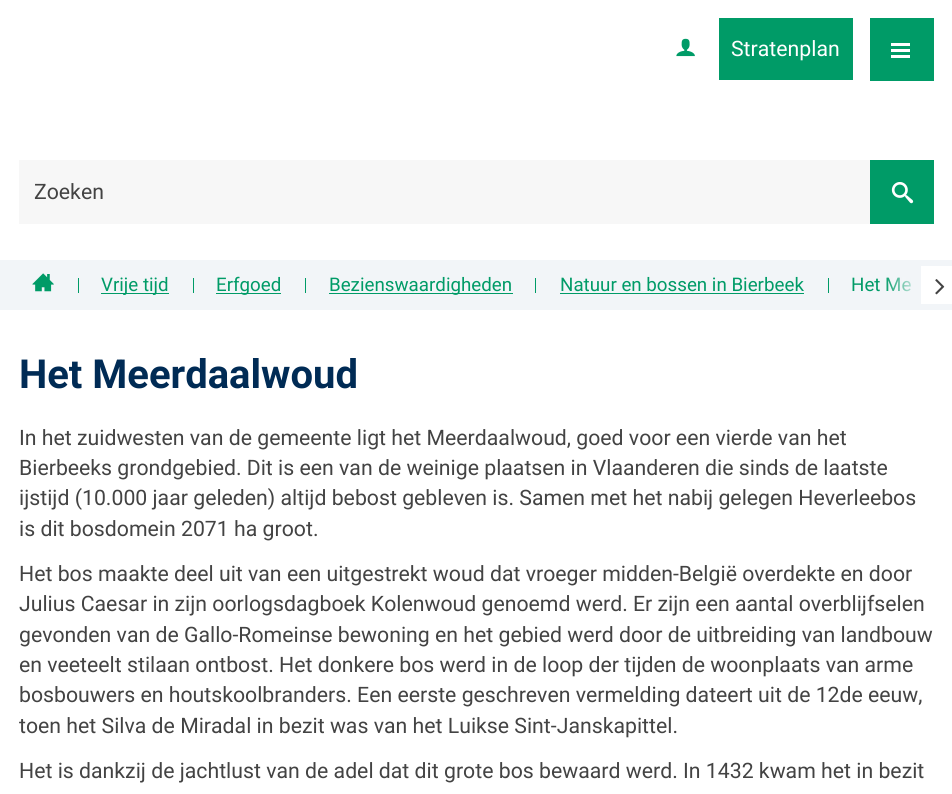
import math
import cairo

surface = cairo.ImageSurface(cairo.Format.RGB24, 952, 794)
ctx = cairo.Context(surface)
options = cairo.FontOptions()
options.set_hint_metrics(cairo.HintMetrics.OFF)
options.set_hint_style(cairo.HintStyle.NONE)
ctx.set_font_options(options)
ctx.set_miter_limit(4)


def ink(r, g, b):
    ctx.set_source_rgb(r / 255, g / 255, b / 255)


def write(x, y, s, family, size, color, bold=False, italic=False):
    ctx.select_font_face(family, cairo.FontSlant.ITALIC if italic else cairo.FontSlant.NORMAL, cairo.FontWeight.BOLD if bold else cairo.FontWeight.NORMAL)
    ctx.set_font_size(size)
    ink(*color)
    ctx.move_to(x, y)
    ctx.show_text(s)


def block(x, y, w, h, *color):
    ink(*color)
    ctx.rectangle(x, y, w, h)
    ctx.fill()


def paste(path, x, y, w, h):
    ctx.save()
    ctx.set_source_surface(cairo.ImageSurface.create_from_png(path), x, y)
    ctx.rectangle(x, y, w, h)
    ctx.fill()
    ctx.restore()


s1 = dict(family="Roboto", size=21.25, color=(255, 255, 255))
s2 = dict(family="Roboto", size=21.25, color=(67, 67, 67))
s3 = dict(family="Roboto", size=18.75, color=(0, 155, 103))
s4 = dict(family="Roboto", size=40, color=(0, 43, 85), bold=True)

ink(255, 255, 255)
ctx.paint()
paste("pic1.png", 676, 38, 19, 19)
block(719, 18, 134, 62, 0, 155, 103)
write(731, 56, "Stratenplan", **s1)
block(870, 18, 64, 63, 0, 155, 103)
block(891, 49, 19, 3, 255, 255, 255)
block(891, 43, 19, 3, 255, 255, 255)
block(891, 55, 19, 3, 255, 255, 255)
block(19, 160, 851, 64, 247, 247, 247)
write(34, 199, "Zoeken", **s2)
block(870, 160, 64, 64, 0, 155, 103)
paste("pic2.png", 891, 182, 23, 22)
block(0, 260, 952, 50, 242, 245, 248)
paste("pic3.png", 32, 273, 22, 19)
block(78, 278, 1, 15, 0, 155, 103)
block(101, 293, 68, 1, 0, 155, 103)
write(101, 291, "Vrije tijd", **s3)
block(193, 278, 1, 15, 0, 155, 103)
block(216, 293, 65, 1, 0, 155, 103)
write(216, 291, "Erfgoed", **s3)
block(305, 278, 1, 15, 0, 155, 103)
block(329, 293, 184, 1, 0, 155, 103)
write(329, 291, "Bezienswaardigheden", **s3)
block(535, 278, 1, 15, 0, 155, 103)
write(560, 291, "Natuur en bossen in Bierbeek", **s3)
block(560, 293, 244, 1, 0, 155, 103)
block(828, 278, 1, 15, 0, 155, 103)
write(851, 291, "Het Me", **s3)
block(921, 266, 31, 38, 255, 255, 255)
gradient = cairo.LinearGradient(884, 285, 921, 285)
gradient.add_color_stop_rgba(0, 0.949, 0.961, 0.973, 0)
gradient.add_color_stop_rgba(1, 0.949, 0.961, 0.973, 1)
ctx.set_source(gradient)
ctx.rectangle(887, 277, 24, 15)
ctx.fill()
paste("pic4.png", 935, 279, 10, 16)
write(19, 388, "Het Meerdaalwoud", **s4)
write(19, 445, "In het zuidwesten van de gemeente ligt het Meerdaalwoud, goed voor een vierde van het", **s2)
write(19, 475, "Bierbeeks grondgebied. Dit is een van de weinige plaatsen in Vlaanderen die sinds de laatste", **s2)
write(19, 505, "ijstijd (10.000 jaar geleden) altijd bebost gebleven is. Samen met het nabij gelegen Heverleebos", **s2)
write(19, 536, "is dit bosdomein 2071 ha groot.", **s2)
write(19, 581, "Het bos maakte deel uit van een uitgestrekt woud dat vroeger midden-België overdekte en door", **s2)
write(19, 611, "Julius Caesar in zijn oorlogsdagboek Kolenwoud genoemd werd. Er zijn een aantal overblijfselen", **s2)
write(19, 642, "gevonden van de Gallo-Romeinse bewoning en het gebied werd door de uitbreiding van landbouw", **s2)
write(19, 672, "en veeteelt stilaan ontbost. Het donkere bos werd in de loop der tijden de woonplaats van arme", **s2)
write(19, 702, "bosbouwers en houtskoolbranders. Een eerste geschreven vermelding dateert uit de 12de eeuw,", **s2)
write(19, 733, "toen het Silva de Miradal in bezit was van het Luikse Sint-Janskapittel.", **s2)
write(19, 778, "Het is dankzij de jachtlust van de adel dat dit grote bos bewaard werd. In 1432 kwam het in bezit", **s2)
surface.write_to_png("screenshot.png")
